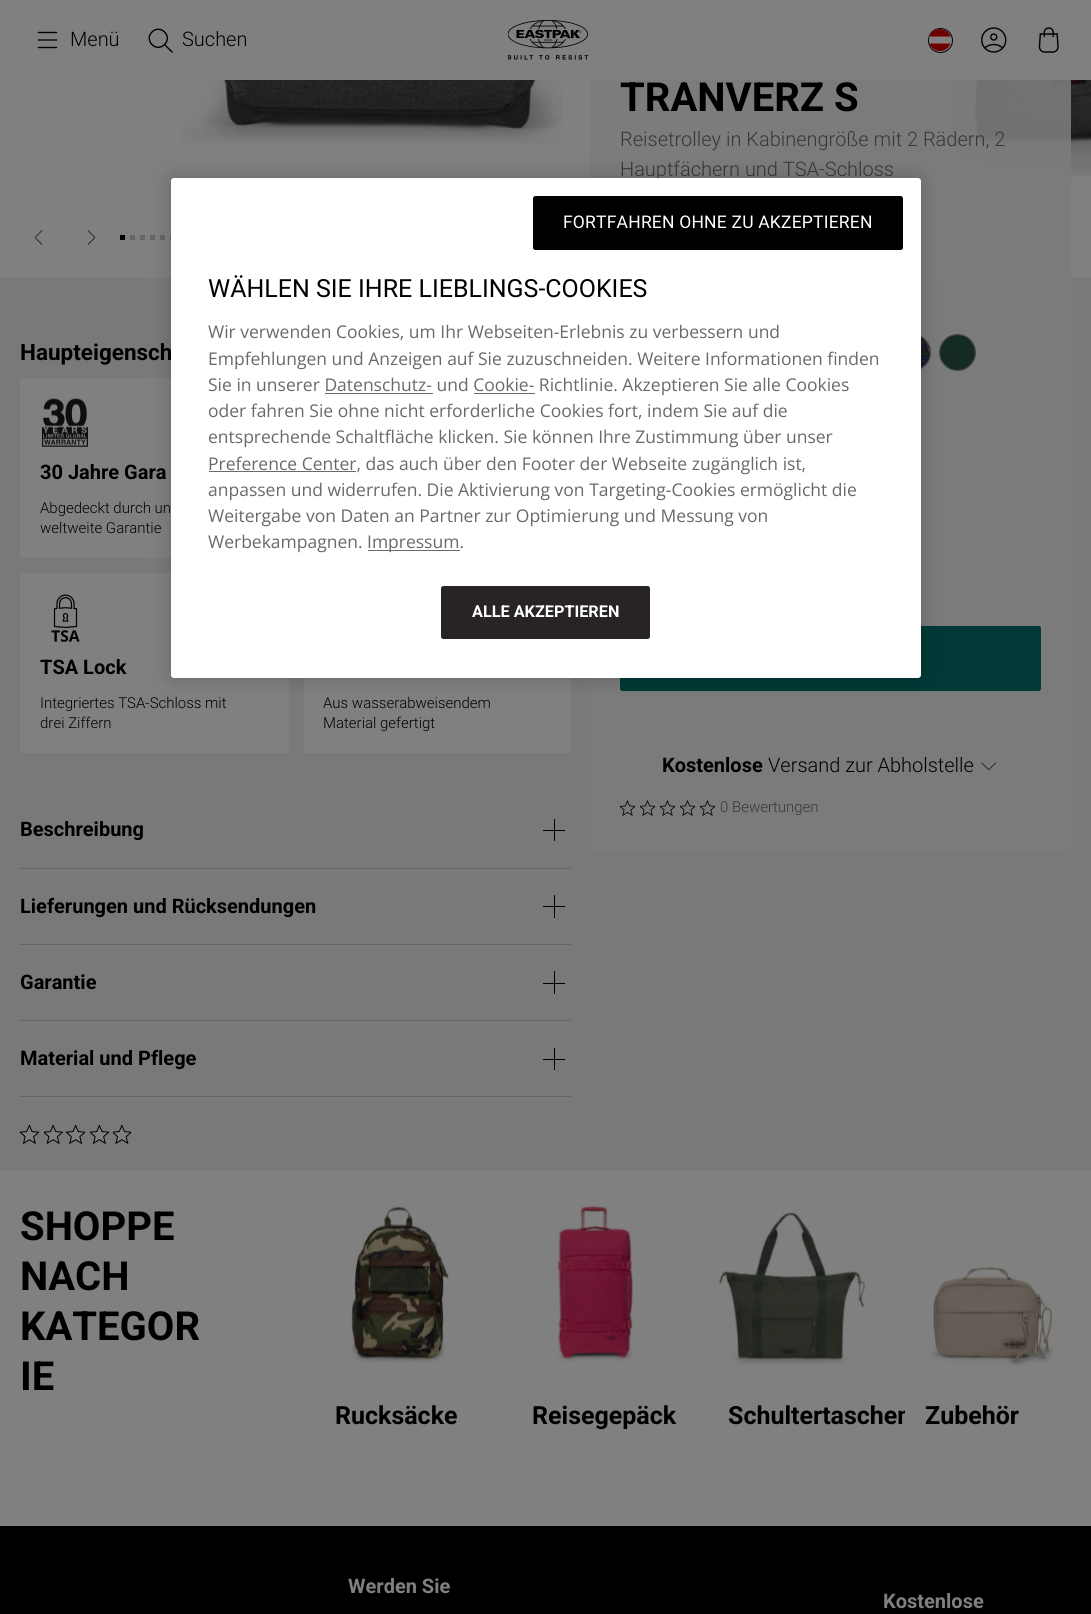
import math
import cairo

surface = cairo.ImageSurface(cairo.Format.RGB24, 1091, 1614)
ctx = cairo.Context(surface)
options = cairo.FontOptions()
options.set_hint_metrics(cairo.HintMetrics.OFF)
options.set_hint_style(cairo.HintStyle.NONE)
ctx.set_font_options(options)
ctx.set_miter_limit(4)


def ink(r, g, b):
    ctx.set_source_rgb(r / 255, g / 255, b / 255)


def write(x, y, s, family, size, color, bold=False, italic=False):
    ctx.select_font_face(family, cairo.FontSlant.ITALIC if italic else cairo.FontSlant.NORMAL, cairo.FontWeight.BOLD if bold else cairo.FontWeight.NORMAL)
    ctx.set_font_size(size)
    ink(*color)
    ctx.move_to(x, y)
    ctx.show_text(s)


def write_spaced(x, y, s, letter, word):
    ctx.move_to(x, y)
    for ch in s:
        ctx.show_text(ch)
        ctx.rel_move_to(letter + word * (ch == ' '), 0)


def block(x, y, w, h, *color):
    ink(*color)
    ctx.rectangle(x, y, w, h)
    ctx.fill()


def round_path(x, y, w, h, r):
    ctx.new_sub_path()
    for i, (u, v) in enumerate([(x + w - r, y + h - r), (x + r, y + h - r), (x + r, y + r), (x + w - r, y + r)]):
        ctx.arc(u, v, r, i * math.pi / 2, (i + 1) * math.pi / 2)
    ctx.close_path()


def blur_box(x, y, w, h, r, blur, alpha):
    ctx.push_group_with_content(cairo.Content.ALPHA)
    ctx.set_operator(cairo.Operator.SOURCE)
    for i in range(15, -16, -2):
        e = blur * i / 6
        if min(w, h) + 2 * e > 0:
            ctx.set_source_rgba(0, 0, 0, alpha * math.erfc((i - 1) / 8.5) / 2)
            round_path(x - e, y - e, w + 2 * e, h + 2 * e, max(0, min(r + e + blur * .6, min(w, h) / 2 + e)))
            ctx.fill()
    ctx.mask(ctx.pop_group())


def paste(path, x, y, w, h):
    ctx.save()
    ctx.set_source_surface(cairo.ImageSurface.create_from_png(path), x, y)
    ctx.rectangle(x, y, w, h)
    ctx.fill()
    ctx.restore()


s1 = dict(family="Roboto Light", size=20, color=(0, 0, 0))
s2 = dict(family="Roboto", size=40, color=(0, 0, 0), bold=True)
s3 = dict(family="Roboto Light", size=20, color=(55, 55, 55))
s4 = dict(family="Roboto", size=20, color=(0, 0, 0), bold=True)
s5 = dict(family="Roboto Light", size=15, color=(55, 55, 55))
s6 = dict(family="Roboto", size=22.5, color=(0, 0, 0), bold=True)
s7 = dict(family="Roboto Light", size=15, color=(0, 0, 0))
s8 = dict(family="Roboto", size=25, color=(0, 0, 0), bold=True)
s9 = dict(family="Roboto", size=25, color=(0, 0, 0))
s10 = dict(family="Open Sans", size=17.5, color=(105, 105, 105))
s11 = dict(family="Roboto", size=16.25, color=(255, 255, 255), bold=True)
s12 = dict(family="Roboto", size=20, color=(128, 128, 128), bold=True)

ink(128, 128, 128)
ctx.paint()
ctx.new_path()
ctx.move_to(38.5, 40)
ctx.line_to(56.5, 40)
ctx.move_to(38.5, 47.5)
ctx.line_to(56.5, 47.5)
ctx.move_to(38.5, 32.5)
ctx.line_to(56.5, 32.5)
ink(0, 0, 0)
ctx.set_line_width(1.4)
ctx.set_line_cap(cairo.LineCap.ROUND)
ctx.stroke()
write(70, 46, "Menü", **s1)
ctx.new_path()
ctx.move_to(164.5, 44.5)
ctx.curve_to(173, 36.5, 160.5, 23.5, 152, 32)
ctx.curve_to(143.5, 40.5, 156.5, 53, 164.5, 44.5)
ctx.close_path()
ctx.move_to(164.5, 44.5)
ctx.line_to(172, 52)
ctx.stroke()
write(182, 46, "Suchen", **s1)
paste("pic1.png", 508, 20, 81, 40)
ctx.arc(940.5, 40.5, 12, 0, 2 * math.pi)
ctx.set_line_width(1)
ctx.set_line_cap(cairo.LineCap.BUTT)
ctx.stroke()
ink(128, 128, 128)
ctx.arc(940, 40, 11, 0, 2 * math.pi)
ctx.fill()
ink(112, 0, 0)
ctx.set_fill_rule(cairo.FillRule.EVEN_ODD)
ctx.new_path()
ctx.move_to(940, 29)
ctx.curve_to(945, 29, 949, 32, 950.5, 36.5)
ctx.line_to(929.5, 36.5)
ctx.curve_to(931, 32, 935, 29, 940, 29)
ctx.close_path()
ctx.move_to(950.5, 43.5)
ctx.curve_to(947, 53.5, 933, 53.5, 929.5, 43.5)
ctx.close_path()
ctx.fill()
paste("pic2.png", 981, 27, 26, 26)
paste("pic3.png", 1038, 27, 21, 26)
paste("pic4.png", 182, 80, 381, 64)
paste("pic5.png", 778, 80, 313, 97)
paste("pic6.png", 34, 230, 9, 15)
paste("pic7.png", 87, 230, 9, 15)
block(120, 235, 5, 5, 0, 0, 0)
block(130, 235, 5, 5, 102, 102, 102)
block(140, 235, 5, 5, 102, 102, 102)
block(150, 235, 5, 5, 102, 102, 102)
block(160, 235, 5, 5, 102, 102, 102)
block(170, 235, 5, 5, 102, 102, 102)
block(0, 278, 1091, 893, 121, 121, 120)
ctx.set_source_rgba(0.486, 0.486, 0.486, 0.9)
ctx.rectangle(590, 80, 481, 771)
ctx.fill()
write(620, 111, "TRANVERZ S", **s2)
write(620, 146, "Reisetrolley in Kabinengröße mit 2 Rädern, 2", **s3)
write(620, 176, "Hauptfächern und TSA-Schloss", **s3)
ctx.new_path()
ctx.arc(912.5, 352.5, 18, 0, 2 * math.pi)
ink(66, 66, 66)
ctx.stroke()
paste("pic8.png", 921, 337, 9, 31)
ctx.arc(957.5, 352.5, 18, 0, 2 * math.pi)
ctx.stroke()
paste("pic9.png", 940, 335, 35, 35)
ink(0, 57, 54)
round_path(620.5, 626.5, 420, 64, 2)
ctx.fill_preserve()
ctx.stroke()
write(662, 772, "Kostenlose", **s4)
write(768, 772, "Versand zur Abholstelle", **s1)
paste("pic10.png", 981, 762, 15, 8)
paste("pic11.png", 620, 800, 15, 16)
paste("pic11.png", 640, 800, 15, 16)
paste("pic11.png", 660, 800, 15, 16)
paste("pic11.png", 680, 800, 15, 16)
paste("pic11.png", 700, 800, 15, 16)
write(720, 812, "0 Bewertungen", **s5)
write(20, 360, "Haupteigensch", **s6)
block(20, 378, 151, 180, 128, 128, 128)
paste("pic12.png", 42, 398, 46, 49)
write(40, 479, "30 Jahre Gara", **s4)
write(40, 513, "Abgedeckt durch un", **s7)
write(40, 533, "weltweite Garantie", **s7)
block(20, 573, 269, 180, 128, 128, 128)
paste("pic13.png", 51, 594, 29, 48)
write(40, 674, "TSA Lock", **s4)
write(40, 708, "Integriertes TSA-Schloss mit", **s7)
write(40, 728, "drei Ziffern", **s7)
block(304, 678, 267, 75, 128, 128, 128)
write(323, 708, "Aus wasserabweisendem", **s7)
write(323, 728, "Material gefertigt", **s7)
block(20, 868, 551, 1, 101, 101, 101)
write(20, 836, "Beschreibung", **s4)
block(554, 819, 1, 22, 0, 0, 0)
block(543, 830, 22, 1, 0, 0, 0)
block(20, 944, 551, 1, 101, 101, 101)
write(20, 913, "Lieferungen und Rücksendungen", **s4)
block(554, 895, 1, 23, 0, 0, 0)
block(543, 906, 22, 1, 0, 0, 0)
block(20, 1020, 551, 1, 101, 101, 101)
write(20, 989, "Garantie", **s4)
block(554, 971, 1, 23, 0, 0, 0)
block(543, 983, 22, 1, 0, 0, 0)
block(20, 1096, 551, 1, 101, 101, 101)
write(20, 1065, "Material und Pflege", **s4)
block(554, 1048, 1, 22, 0, 0, 0)
block(543, 1059, 22, 1, 0, 0, 0)
paste("pic14.png", 20, 1125, 19, 19)
paste("pic15.png", 44, 1125, 19, 19)
paste("pic16.png", 66, 1125, 19, 19)
paste("pic14.png", 90, 1125, 19, 19)
paste("pic17.png", 113, 1125, 18, 19)
write(20, 1240, "SHOPPE", **s2)
write(20, 1290, "NACH", **s2)
write(20, 1340, "KATEGOR", **s2)
write(20, 1390, "IE", **s2)
paste("pic18.png", 351, 1206, 98, 157)
write(335, 1424, "Rucksäcke", **s8)
paste("pic19.png", 557, 1206, 76, 156)
write(532, 1424, "Reisegepäck", **s8)
paste("pic20.png", 718, 1212, 147, 153)
write(728, 1424, "Schultertaschen", **s8)
block(905, 1410, 6, 14, 128, 128, 128)
paste("pic21.png", 931, 1266, 123, 101)
write(925, 1424, "Zubehör", **s8)
ink(0, 0, 0)
blur_box(171, 178, 750, 500, 3, 11, 0.2)
ink(255, 255, 255)
round_path(171, 178, 750, 500, 3)
ctx.fill()
ink(0, 0, 0)
round_path(533, 196, 370, 54, 2.5)
ctx.fill()
ctx.select_font_face("Roboto")
ctx.set_font_size(17.5)
ink(255, 255, 255)
write_spaced(563, 228, "FORTFAHREN OHNE ZU AKZEPTIEREN", 0.2, 0)
write(208, 297, "WÄHLEN SIE IHRE LIEBLINGS-COOKIES", **s9)
write(208, 338, "Wir verwenden Cookies, um Ihr Webseiten-Erlebnis zu verbessern und", **s10)
write(208, 365, "Empfehlungen und Anzeigen auf Sie zuzuschneiden. Weitere Informationen finden", **s10)
write(208, 391, "Sie in unserer Datenschutz- und Cookie- Richtlinie. Akzeptieren Sie alle Cookies", **s10)
block(325, 393, 108, 1, 105, 105, 105)
block(474, 393, 61, 1, 105, 105, 105)
write(208, 417, "oder fahren Sie ohne nicht erforderliche Cookies fort, indem Sie auf die", **s10)
write(208, 443, "entsprechende Schaltfläche klicken. Sie können Ihre Zustimmung über unser", **s10)
block(209, 471, 147, 1, 105, 105, 105)
write(208, 470, "Preference Center, das auch über den Footer der Webseite zugänglich ist,", **s10)
write(208, 496, "anpassen und widerrufen. Die Aktivierung von Targeting-Cookies ermöglicht die", **s10)
write(208, 522, "Weitergabe von Daten an Partner zur Optimierung und Messung von", **s10)
write(208, 548, "Werbekampagnen.", **s10)
block(368, 550, 92, 1, 105, 105, 105)
write(367, 548, "Impressum.", **s10)
ink(40, 36, 37)
round_path(441.5, 586.5, 208, 52, 2)
ctx.fill_preserve()
ctx.stroke()
write(472, 617, "ALLE AKZEPTIEREN", **s11)
block(0, 1526, 1091, 88, 0, 0, 0)
write(348, 1593, "Werden Sie", **s12)
write(883, 1608, "Kostenlose", **s12)
surface.write_to_png("screenshot.png")
